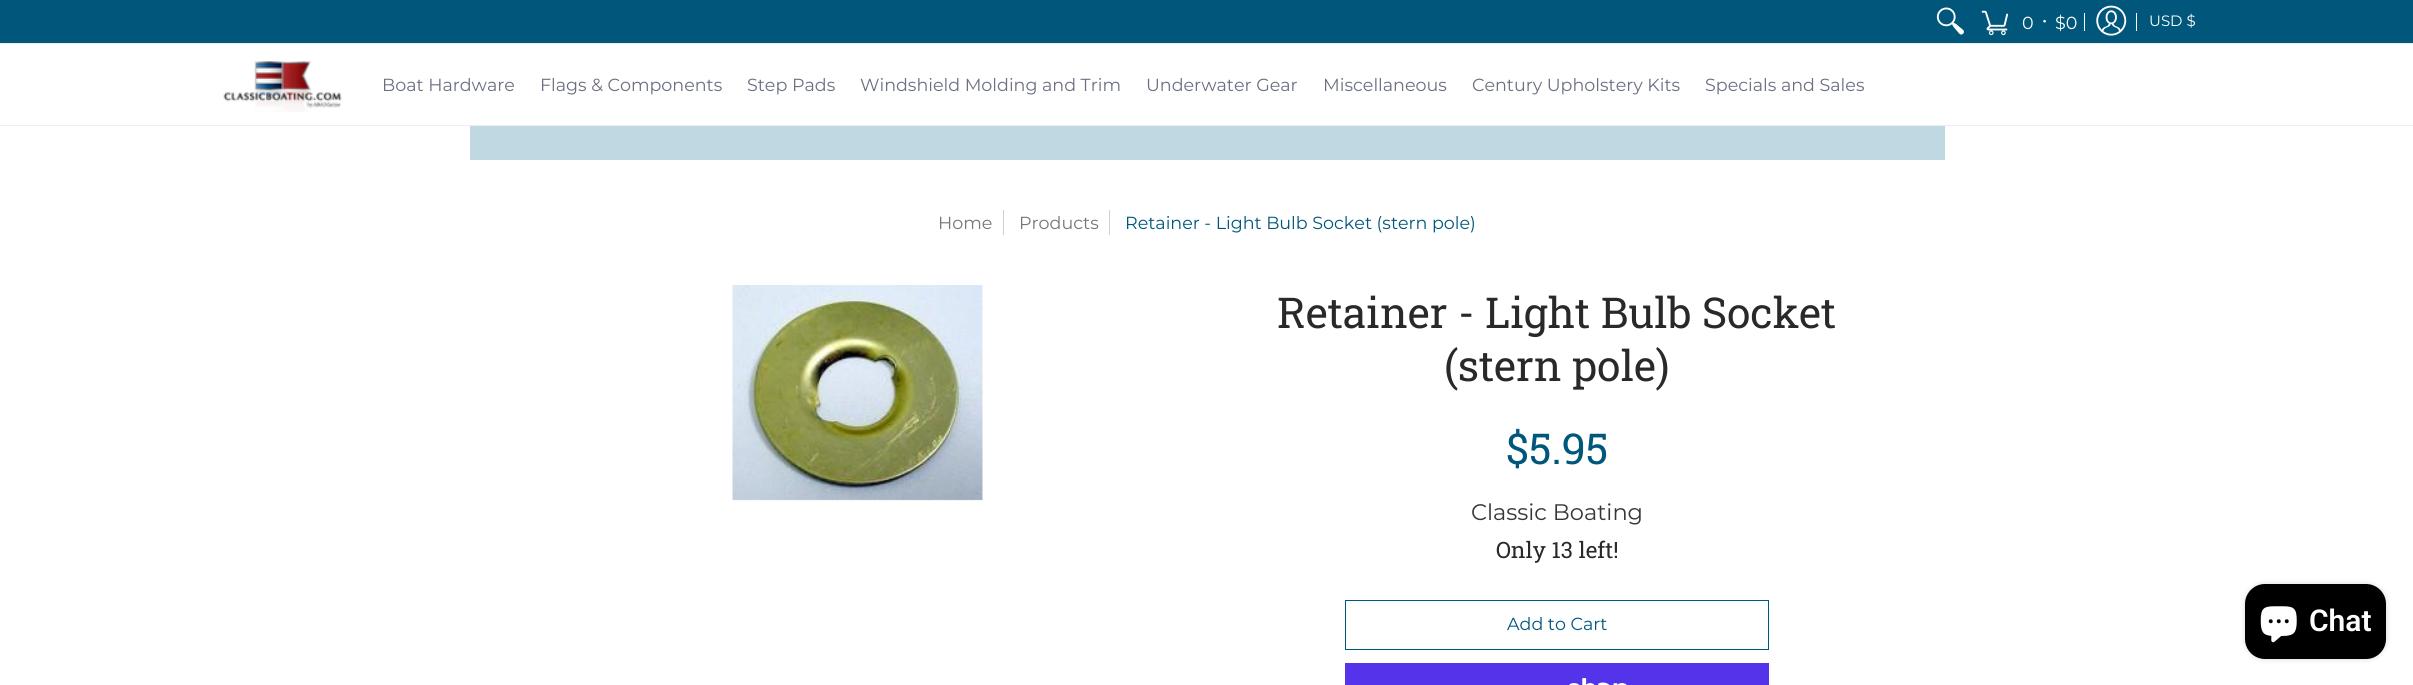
import math
import cairo

surface = cairo.ImageSurface(cairo.Format.RGB24, 2413, 685)
ctx = cairo.Context(surface)
options = cairo.FontOptions()
options.set_hint_metrics(cairo.HintMetrics.OFF)
options.set_hint_style(cairo.HintStyle.NONE)
ctx.set_font_options(options)
ctx.set_miter_limit(4)


def ink(r, g, b):
    ctx.set_source_rgb(r / 255, g / 255, b / 255)


def write(x, y, s, family, size, color, bold=False, italic=False):
    ctx.select_font_face(family, cairo.FontSlant.ITALIC if italic else cairo.FontSlant.NORMAL, cairo.FontWeight.BOLD if bold else cairo.FontWeight.NORMAL)
    ctx.set_font_size(size)
    ink(*color)
    ctx.move_to(x, y)
    ctx.show_text(s)


def block(x, y, w, h, *color):
    ink(*color)
    ctx.rectangle(x, y, w, h)
    ctx.fill()


def round_path(x, y, w, h, r):
    ctx.new_sub_path()
    for i, (u, v) in enumerate([(x + w - r, y + h - r), (x + r, y + h - r), (x + r, y + r), (x + w - r, y + r)]):
        ctx.arc(u, v, r, i * math.pi / 2, (i + 1) * math.pi / 2)
    ctx.close_path()


def blur_box(x, y, w, h, r, blur, alpha):
    ctx.push_group_with_content(cairo.Content.ALPHA)
    ctx.set_operator(cairo.Operator.SOURCE)
    for i in range(15, -16, -2):
        e = blur * i / 6
        if min(w, h) + 2 * e > 0:
            ctx.set_source_rgba(0, 0, 0, alpha * math.erfc((i - 1) / 8.5) / 2)
            round_path(x - e, y - e, w + 2 * e, h + 2 * e, max(0, min(r + e + blur * .6, min(w, h) / 2 + e)))
            ctx.fill()
    ctx.mask(ctx.pop_group())


def paste(path, x, y, w, h):
    ctx.save()
    ctx.set_source_surface(cairo.ImageSurface.create_from_png(path), x, y)
    ctx.rectangle(x, y, w, h)
    ctx.fill()
    ctx.restore()


s1 = dict(family="Montserrat", size=17.5, color=(255, 255, 255))
s2 = dict(family="Montserrat", size=15, color=(255, 255, 255))
s3 = dict(family="Montserrat", size=17.5, color=(107, 111, 129))
s4 = dict(family="Montserrat", size=17.5, color=(118, 118, 118))
s5 = dict(family="Montserrat", size=17.5, color=(0, 87, 123))
s6 = dict(family="Roboto Slab", size=42.5, color=(41, 41, 41))
s7 = dict(family="Roboto Slab", size=42.5, color=(0, 87, 123))
s8 = dict(family="Montserrat", size=22.5, color=(56, 55, 55))
s9 = dict(family="Roboto Slab", size=22.5, color=(41, 41, 41))
s10 = dict(family="Roboto SemiBold", size=30, color=(255, 255, 255))

ink(255, 255, 255)
ctx.paint()
block(0, 0, 2413, 43, 0, 87, 123)
block(0, 43, 2413, 1, 237, 238, 244)
paste("pic1.png", 1936, 7, 28, 28)
paste("pic2.png", 1981, 10, 28, 26)
write(2022, 29, "0", **s1)
write(2042, 26, "•", **s1)
write(2055, 29, "$0", **s1)
block(2084, 13, 1, 18, 255, 255, 255)
paste("pic3.png", 2096, 5, 31, 31)
block(2136, 13, 1, 18, 255, 255, 255)
write(2149, 26, "USD $", **s2)
block(0, 125, 2413, 1, 237, 238, 244)
paste("pic4.png", 223, 61, 119, 51)
write(382, 91, "Boat Hardware", **s3)
write(540, 91, "Flags & Components", **s3)
write(747, 91, "Step Pads", **s3)
write(860, 91, "Windshield Molding and Trim", **s3)
write(1146, 91, "Underwater Gear", **s3)
write(1323, 91, "Miscellaneous", **s3)
write(1472, 91, "Century Upholstery Kits", **s3)
write(1705, 91, "Specials and Sales", **s3)
block(470, 126, 1475, 34, 192, 216, 226)
write(938, 229, "Home", **s4)
block(1003, 210, 1, 25, 205, 208, 225)
write(1019, 229, "Products", **s4)
block(1109, 210, 1, 25, 205, 208, 225)
write(1125, 229, "Retainer - Light Bulb Socket (stern pole)", **s5)
paste("pic5.png", 732, 285, 251, 216)
write(1277, 328, "Retainer - Light Bulb Socket", **s6)
write(1444, 381, "(stern pole)", **s6)
write(1506, 464, "$5.95", **s7)
write(1471, 520, "Classic Boating", **s8)
write(1496, 558, "Only 13 left!", **s9)
ctx.rectangle(1345.5, 600.5, 423, 49)
ink(0, 87, 123)
ctx.set_line_width(1)
ctx.stroke()
write(1507, 630, "Add to Cart", **s5)
block(1345, 663, 424, 22, 84, 51, 235)
paste("pic6.png", 1569, 678, 58, 7)
ink(0, 0, 0)
blur_box(2245, 584, 141, 75, 20, 3, 0.15)
ink(0, 0, 0)
round_path(2245, 584, 141, 75, 20)
ctx.fill()
paste("pic7.png", 2260, 606, 37, 37)
write(2309, 631, "Chat", **s10)
surface.write_to_png("screenshot.png")
